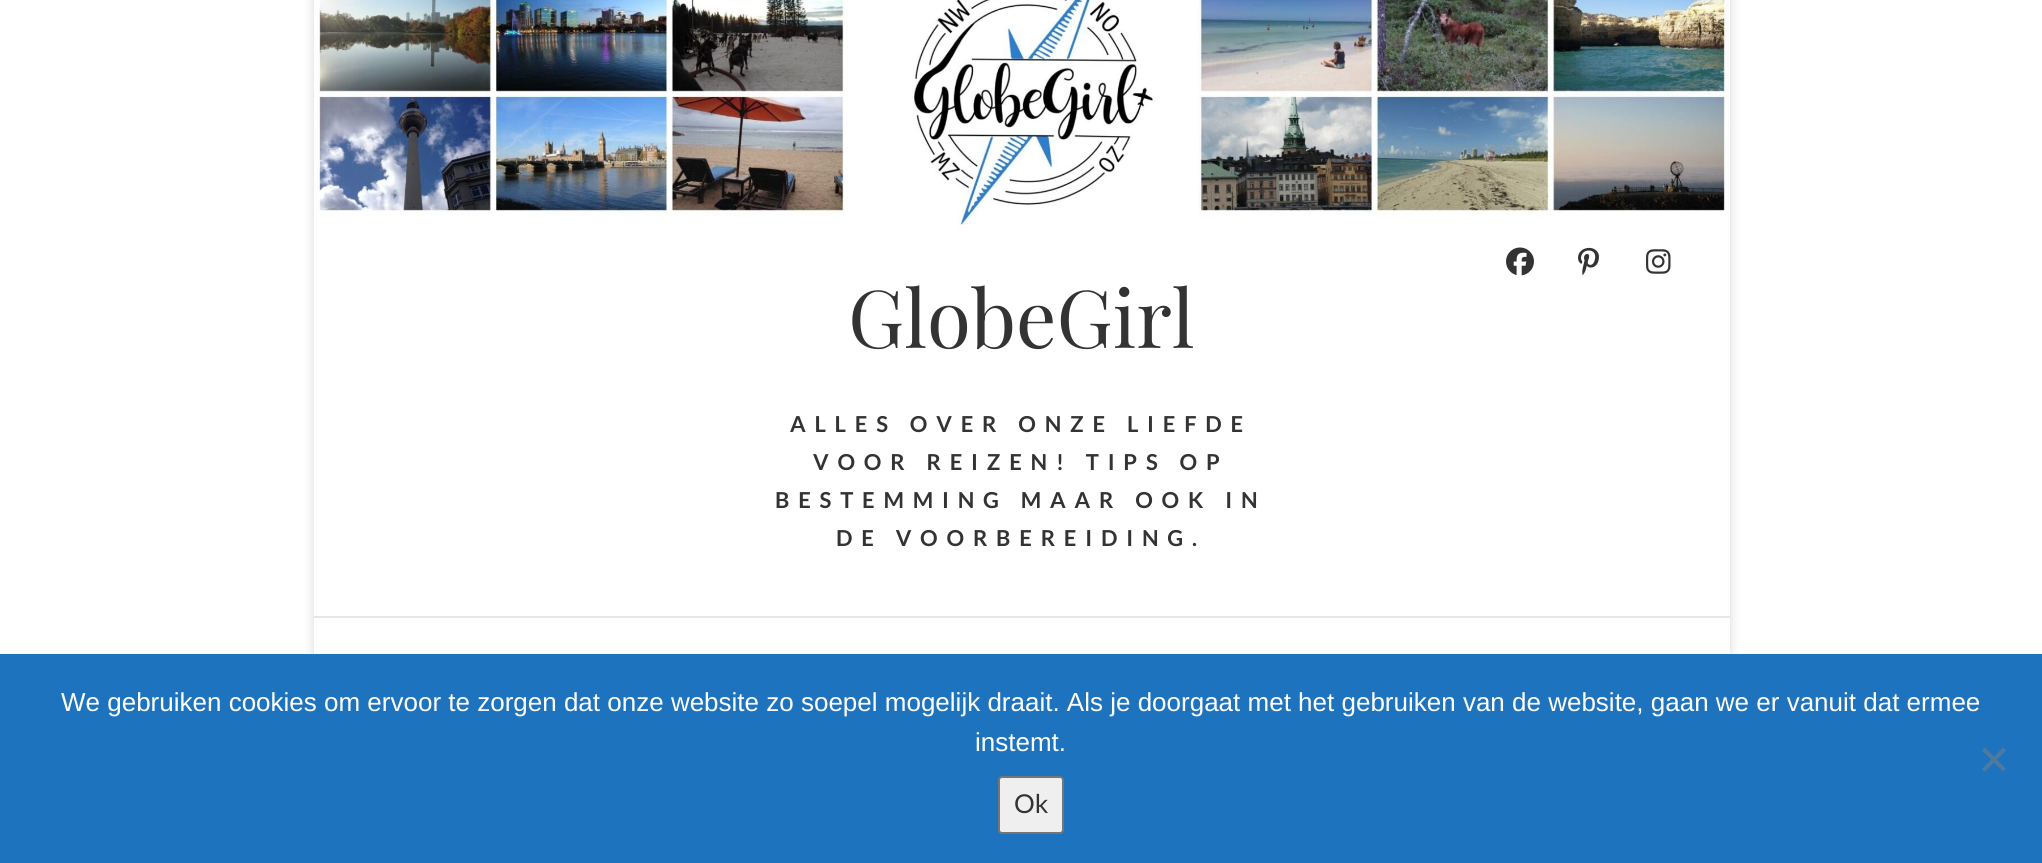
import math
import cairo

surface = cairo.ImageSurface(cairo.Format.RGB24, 2042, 863)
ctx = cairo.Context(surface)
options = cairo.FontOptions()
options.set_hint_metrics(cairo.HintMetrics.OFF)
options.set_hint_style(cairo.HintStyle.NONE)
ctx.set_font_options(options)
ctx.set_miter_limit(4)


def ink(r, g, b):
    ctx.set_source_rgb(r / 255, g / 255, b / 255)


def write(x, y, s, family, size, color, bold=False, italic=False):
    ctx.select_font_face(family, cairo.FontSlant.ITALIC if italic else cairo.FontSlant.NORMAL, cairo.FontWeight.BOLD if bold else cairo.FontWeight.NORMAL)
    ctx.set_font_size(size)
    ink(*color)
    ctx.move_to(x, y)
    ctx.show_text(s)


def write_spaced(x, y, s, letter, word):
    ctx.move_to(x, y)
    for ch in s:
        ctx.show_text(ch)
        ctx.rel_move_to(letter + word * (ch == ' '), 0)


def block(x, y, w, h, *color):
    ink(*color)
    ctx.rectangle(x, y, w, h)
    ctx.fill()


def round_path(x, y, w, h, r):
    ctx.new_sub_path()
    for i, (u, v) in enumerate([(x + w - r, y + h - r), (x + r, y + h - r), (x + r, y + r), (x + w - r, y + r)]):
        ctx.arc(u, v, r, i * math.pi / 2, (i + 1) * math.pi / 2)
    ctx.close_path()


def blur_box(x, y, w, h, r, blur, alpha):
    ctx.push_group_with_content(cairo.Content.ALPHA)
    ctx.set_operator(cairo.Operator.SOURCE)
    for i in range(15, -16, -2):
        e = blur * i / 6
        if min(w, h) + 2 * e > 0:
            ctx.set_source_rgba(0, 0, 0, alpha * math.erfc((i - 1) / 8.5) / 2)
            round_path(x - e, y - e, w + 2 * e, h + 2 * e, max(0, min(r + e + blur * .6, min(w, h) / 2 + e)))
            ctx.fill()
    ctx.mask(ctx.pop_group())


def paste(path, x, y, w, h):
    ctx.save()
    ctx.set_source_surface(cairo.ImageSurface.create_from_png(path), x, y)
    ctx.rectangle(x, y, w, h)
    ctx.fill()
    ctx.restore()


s1 = dict(family="Playfair Display", size=80, color=(51, 51, 51))
s2 = dict(family="Liberation Sans", size=26, color=(255, 255, 255))
s3 = dict(family="Lato", size=26, color=(51, 51, 51))

ink(255, 255, 255)
ctx.paint()
ctx.save()
ctx.set_fill_rule(cairo.FillRule.EVEN_ODD)
ctx.new_path()
ctx.move_to(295, 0)
ctx.line_to(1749, 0)
ctx.line_to(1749, 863)
ctx.line_to(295, 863)
ctx.close_path()
ctx.move_to(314, -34)
ctx.line_to(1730, -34)
ctx.line_to(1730, 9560)
ctx.line_to(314, 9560)
ctx.close_path()
ctx.clip()
ink(0, 0, 0)
blur_box(314, -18, 1416, 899, 0, 6, 0.15)
ctx.restore()
paste("pic1.png", 314, 0, 1416, 228)
block(314, 616, 1416, 2, 230, 230, 230)
paste("pic2.png", 1506, 247, 28, 29)
paste("pic3.png", 1578, 247, 21, 29)
paste("pic4.png", 1646, 249, 25, 25)
write(848, 348, "GlobeGirl", **s1)
ctx.select_font_face("Lato", cairo.FontSlant.NORMAL, cairo.FontWeight.BOLD)
ctx.set_font_size(22)
write_spaced(790, 432, "ALLES OVER ONZE LIEFDE", 8.8, 0)
write_spaced(813, 470, "VOOR REIZEN! TIPS OP", 8.8, 0)
write_spaced(775, 508, "BESTEMMING MAAR OOK IN", 8.8, 0)
write_spaced(836, 546, "DE VOORBEREIDING.", 8.8, 0)
block(0, 654, 2042, 209, 30, 115, 190)
write(61, 711, "We gebruiken cookies om ervoor te zorgen dat onze website zo soepel mogelijk draait. Als je doorgaat met het gebruiken van de website, gaan we er vanuit dat ermee", **s2)
write(975, 751, "instemt.", **s2)
ink(79, 122, 159)
ctx.new_path()
ctx.move_to(2003, 747.5)
ctx.line_to(2006, 750.5)
ctx.line_to(1985, 771.5)
ctx.line_to(1982, 769)
ctx.close_path()
ctx.fill()
ctx.new_path()
ctx.move_to(1982, 750.5)
ctx.line_to(1985, 747.5)
ctx.line_to(2006, 769)
ctx.line_to(2003, 771.5)
ctx.close_path()
ctx.fill()
ink(239, 239, 239)
round_path(999, 777, 64, 56, 3)
ctx.fill_preserve()
ink(118, 118, 118)
ctx.stroke()
write(1014, 813, "Ok", **s3)
surface.write_to_png("screenshot.png")
